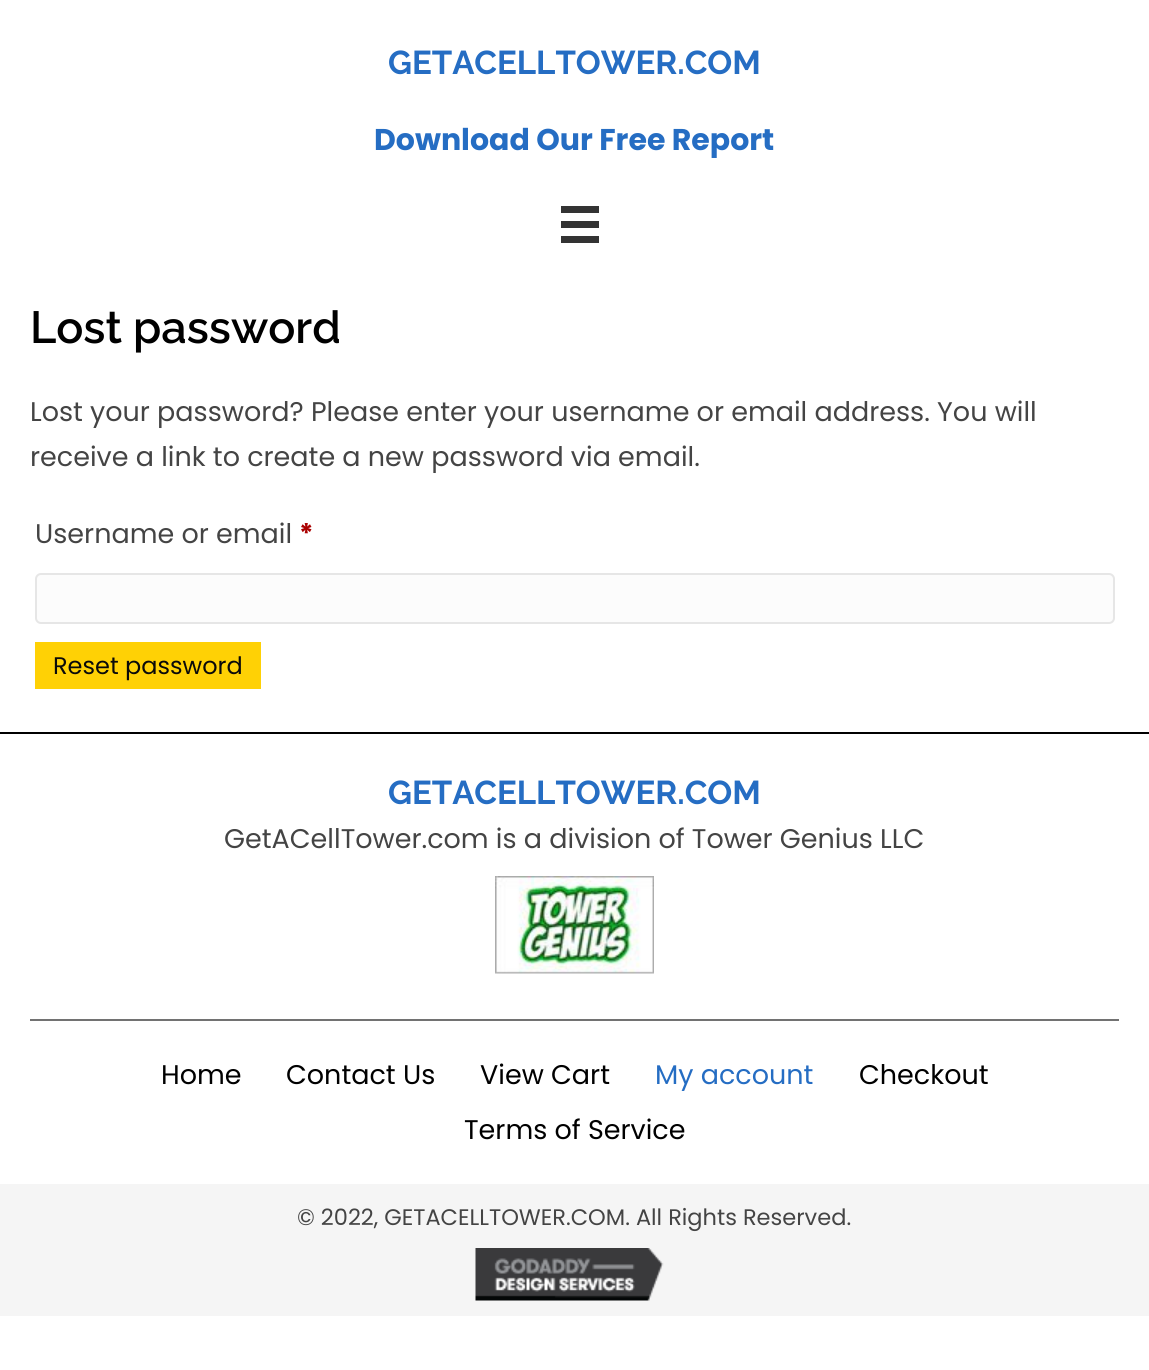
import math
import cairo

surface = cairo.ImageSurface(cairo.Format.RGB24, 1149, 1370)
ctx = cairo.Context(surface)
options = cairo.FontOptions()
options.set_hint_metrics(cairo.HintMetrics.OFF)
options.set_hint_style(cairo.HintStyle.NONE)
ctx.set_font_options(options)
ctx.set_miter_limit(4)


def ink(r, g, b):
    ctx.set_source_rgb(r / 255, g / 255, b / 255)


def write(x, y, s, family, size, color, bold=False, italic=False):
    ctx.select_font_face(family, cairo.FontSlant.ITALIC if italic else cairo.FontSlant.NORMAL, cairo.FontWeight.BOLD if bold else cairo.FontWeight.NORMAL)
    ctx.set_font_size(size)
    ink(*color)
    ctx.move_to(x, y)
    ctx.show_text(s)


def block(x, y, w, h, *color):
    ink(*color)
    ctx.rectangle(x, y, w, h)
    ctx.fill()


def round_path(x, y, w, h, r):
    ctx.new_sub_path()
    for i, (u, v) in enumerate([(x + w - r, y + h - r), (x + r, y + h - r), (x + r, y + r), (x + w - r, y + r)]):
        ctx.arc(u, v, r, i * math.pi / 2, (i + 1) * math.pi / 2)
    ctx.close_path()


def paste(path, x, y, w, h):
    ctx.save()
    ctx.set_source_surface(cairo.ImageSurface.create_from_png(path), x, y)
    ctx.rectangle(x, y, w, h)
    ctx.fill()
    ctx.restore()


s1 = dict(family="Raleway", size=33, color=(37, 109, 195), bold=True)
s2 = dict(family="Poppins", size=30, color=(37, 109, 195), bold=True)
s3 = dict(family="Raleway SemiBold", size=45, color=(0, 0, 0))
s4 = dict(family="Poppins", size=27, color=(68, 68, 68))
s5 = dict(family="Poppins", size=27, color=(170, 0, 0), bold=True)
s6 = dict(family="Poppins", size=24, color=(10, 10, 10))
s7 = dict(family="Poppins", size=27, color=(0, 0, 0))
s8 = dict(family="Poppins", size=27, color=(37, 109, 195))
s9 = dict(family="Poppins", size=22.5, color=(68, 68, 68))

ink(255, 255, 255)
ctx.paint()
write(388, 74, "GETACELLTOWER.COM", **s1)
write(374, 150, "Download Our Free Report", **s2)
block(561, 206, 38, 7, 51, 51, 51)
block(561, 221, 38, 7, 51, 51, 51)
block(561, 236, 38, 7, 51, 51, 51)
write(30, 343, "Lost password", **s3)
write(30, 421, "Lost your password? Please enter your username or email address. You will", **s4)
write(30, 466, "receive a link to create a new password via email.", **s4)
write(35, 543, "Username or email", **s4)
write(299, 543, "*", **s5)
ink(252, 252, 252)
round_path(36, 574, 1078, 49, 5)
ctx.fill_preserve()
ink(230, 230, 230)
ctx.stroke()
block(35, 642, 226, 47, 255, 209, 5)
write(53, 674, "Reset password", **s6)
block(0, 732, 1149, 2, 0, 0, 0)
write(388, 804, "GETACELLTOWER.COM", **s1)
write(224, 848, "GetACellTower.com is a division of Tower Genius LLC", **s4)
paste("pic1.png", 495, 876, 159, 98)
block(30, 1019, 1089, 2, 114, 114, 114)
write(161, 1084, "Home", **s7)
write(286, 1084, "Contact Us", **s7)
write(480, 1084, "View Cart", **s7)
write(655, 1084, "My account", **s8)
write(859, 1084, "Checkout", **s7)
write(464, 1139, "Terms of Service", **s7)
block(0, 1184, 1149, 132, 245, 245, 245)
write(297, 1225, "© 2022, GETACELLTOWER.COM. All Rights Reserved.", **s9)
paste("pic2.png", 475, 1248, 189, 53)
surface.write_to_png("screenshot.png")
